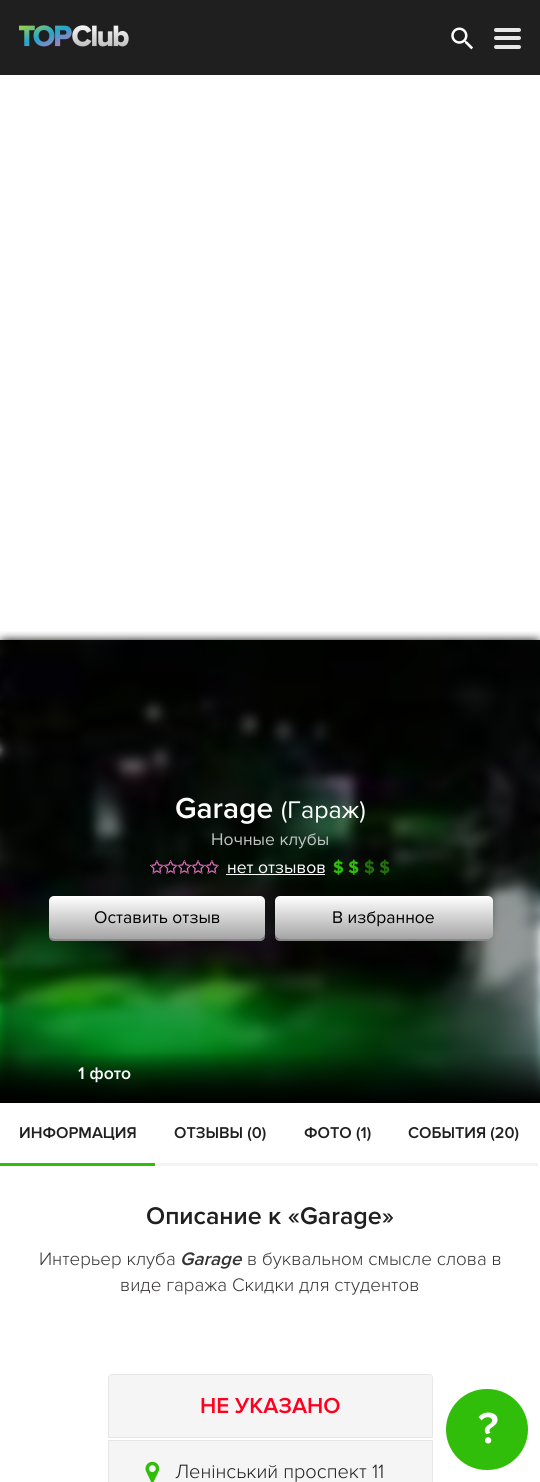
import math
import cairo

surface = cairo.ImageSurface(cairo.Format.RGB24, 540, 1482)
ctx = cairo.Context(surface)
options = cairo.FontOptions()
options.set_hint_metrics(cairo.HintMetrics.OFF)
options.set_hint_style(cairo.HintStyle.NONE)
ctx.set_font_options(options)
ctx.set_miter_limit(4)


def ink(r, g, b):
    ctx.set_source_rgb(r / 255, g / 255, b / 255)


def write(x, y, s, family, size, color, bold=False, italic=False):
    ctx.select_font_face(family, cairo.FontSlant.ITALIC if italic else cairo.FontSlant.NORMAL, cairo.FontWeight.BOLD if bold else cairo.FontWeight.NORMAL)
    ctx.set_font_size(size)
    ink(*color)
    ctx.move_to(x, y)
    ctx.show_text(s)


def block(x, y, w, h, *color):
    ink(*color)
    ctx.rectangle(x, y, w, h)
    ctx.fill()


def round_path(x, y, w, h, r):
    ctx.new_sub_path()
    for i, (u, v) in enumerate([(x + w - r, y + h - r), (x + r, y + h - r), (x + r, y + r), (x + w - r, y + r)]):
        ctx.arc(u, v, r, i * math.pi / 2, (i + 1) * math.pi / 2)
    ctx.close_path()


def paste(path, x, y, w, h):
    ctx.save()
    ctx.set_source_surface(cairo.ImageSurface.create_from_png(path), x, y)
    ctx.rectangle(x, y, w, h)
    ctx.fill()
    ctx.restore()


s1 = dict(family="Proxima Nova SemiBold", size=30, color=(255, 255, 255))
s2 = dict(family="Proxima Nova", size=25, color=(255, 255, 255))
s3 = dict(family="Proxima Nova", size=17.5, color=(191, 196, 193))
s4 = dict(family="Proxima Nova", size=17.5, color=(255, 255, 255))
s5 = dict(family="Proxima Nova", size=17.5, color=(49, 190, 11), bold=True)
s6 = dict(family="Proxima Nova", size=17.5, color=(35, 111, 15), bold=True)
s7 = dict(family="Proxima Nova", size=17.5, color=(0, 0, 0))
s8 = dict(family="Proxima Nova SemiBold", size=17.5, color=(255, 255, 255))
s9 = dict(family="Proxima Nova SemiBold", size=16.25, color=(31, 31, 31))
s10 = dict(family="Proxima Nova SemiBold", size=25, color=(31, 31, 31))
s11 = dict(family="Proxima Nova Light", size=18.75, color=(54, 51, 51))
s12 = dict(family="Proxima Nova SemiBold", size=18.75, color=(54, 51, 51), italic=True)
s13 = dict(family="Proxima Nova SemiBold", size=22.5, color=(255, 0, 31))
s14 = dict(family="Proxima Nova Light", size=20, color=(31, 31, 31))
s15 = dict(family="Proxima Nova SemiBold", size=45, color=(255, 255, 255))

ink(255, 255, 255)
ctx.paint()
block(0, 0, 540, 75, 31, 31, 31)
paste("pic1.png", 19, 25, 110, 22)
paste("pic2.png", 451, 27, 22, 23)
ink(231, 231, 231)
round_path(494, 28, 27, 4, 2)
ctx.fill()
round_path(494, 36, 27, 4, 2)
ctx.fill()
round_path(494, 45, 27, 4, 2)
ctx.fill()
paste("pic3.png", 0, 640, 540, 463)
paste("pic4.png", 0, 1102, 540, 1)
paste("pic5.png", 0, 631, 540, 472)
gradient = cairo.LinearGradient(270, 640, 270, 1103)
gradient.add_color_stop_rgba(0.89, 0, 0, 0, 0)
gradient.add_color_stop_rgba(1, 0, 0, 0, 1)
ctx.set_source(gradient)
ctx.rectangle(0, 1053, 540, 50)
ctx.fill()
write(175, 818, "Garage", **s1)
write(281, 818, "(Гараж)", **s2)
write(211, 845, "Ночные клубы", **s3)
paste("pic6.png", 150, 860, 69, 14)
write(227, 873, "нет отзывов", **s4)
block(226, 874, 99, 1, 255, 255, 255)
write(333, 873, "$ $", **s5)
write(364, 873, "$ $", **s6)
ink(136, 136, 136)
ctx.new_path()
ctx.move_to(49, 935)
ctx.line_to(49, 936)
ctx.curve_to(49, 939, 51, 941, 54, 941)
ctx.line_to(260, 941)
ctx.curve_to(263, 941, 265, 939, 265, 936)
ctx.line_to(265, 934)
ctx.curve_to(265, 937, 263, 939, 260, 939)
ctx.line_to(54, 939)
ctx.curve_to(52, 939, 50, 937, 49, 935)
ctx.close_path()
ctx.fill()
gradient = cairo.LinearGradient(157, 896, 157, 939)
gradient.add_color_stop_rgba(0, 1, 1, 1, 1)
gradient.add_color_stop_rgba(1, 0.647, 0.647, 0.647, 1)
ctx.set_source(gradient)
round_path(49, 896, 216, 43, 5)
ctx.fill()
write(94, 923, "Оставить отзыв", **s7)
ink(136, 136, 136)
ctx.new_path()
ctx.move_to(275, 934)
ctx.line_to(275, 936)
ctx.curve_to(275, 939, 277, 941, 280, 941)
ctx.line_to(488, 941)
ctx.curve_to(491, 941, 493, 939, 493, 936)
ctx.line_to(493, 904)
ctx.line_to(492, 902)
ctx.line_to(492, 934)
ctx.curve_to(492, 937, 490, 939, 488, 939)
ctx.line_to(280, 939)
ctx.curve_to(277, 939, 275, 937, 275, 934)
ctx.close_path()
ctx.fill()
gradient = cairo.LinearGradient(384, 896, 384, 939)
gradient.add_color_stop_rgba(0, 1, 1, 1, 1)
gradient.add_color_stop_rgba(1, 0.647, 0.647, 0.647, 1)
ctx.set_source(gradient)
round_path(275, 896, 218, 43, 5)
ctx.fill()
write(332, 923, "В избранное", **s7)
write(78, 1079, "1 фото", **s8)
block(0, 1163, 155, 3, 49, 190, 11)
write(19, 1138, "ИНФОРМАЦИЯ", **s9)
block(155, 1163, 383, 3, 243, 243, 243)
write(174, 1138, "ОТЗЫВЫ (0)", **s9)
write(304, 1138, "ФОТО (1)", **s9)
write(408, 1138, "СОБЫТИЯ (20)", **s9)
write(146, 1224, "Описание к «Garage»", **s10)
write(39, 1265, "Интерьер клуба", **s11)
write(180, 1265, "Garage", **s12)
write(247, 1265, "в буквальном смысле слова в", **s11)
write(120, 1291, "виде гаража Скидки для студентов", **s11)
ink(245, 245, 245)
ctx.new_path()
ctx.move_to(112, 1374.5)
ctx.line_to(429, 1374.5)
ctx.curve_to(431, 1374.5, 432.5, 1376, 432.5, 1378)
ctx.line_to(432.5, 1437.5)
ctx.line_to(108.5, 1437.5)
ctx.line_to(108.5, 1378)
ctx.curve_to(108.5, 1376, 110, 1374.5, 112, 1374.5)
ctx.close_path()
ctx.fill_preserve()
ink(231, 231, 231)
ctx.set_line_width(1)
ctx.stroke()
write(200, 1413, "НЕ УКАЗАНО", **s13)
ink(245, 245, 245)
ctx.rectangle(108.5, 1440.5, 324, 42)
ctx.fill_preserve()
ink(231, 231, 231)
ctx.stroke()
paste("pic7.png", 145, 1461, 15, 21)
write(175, 1478, "Ленінський проспект 11", **s14)
ink(49, 190, 10)
round_path(446, 1389, 82, 81, 40.5)
ctx.fill()
write(478, 1443, "?", **s15)
surface.write_to_png("screenshot.png")
